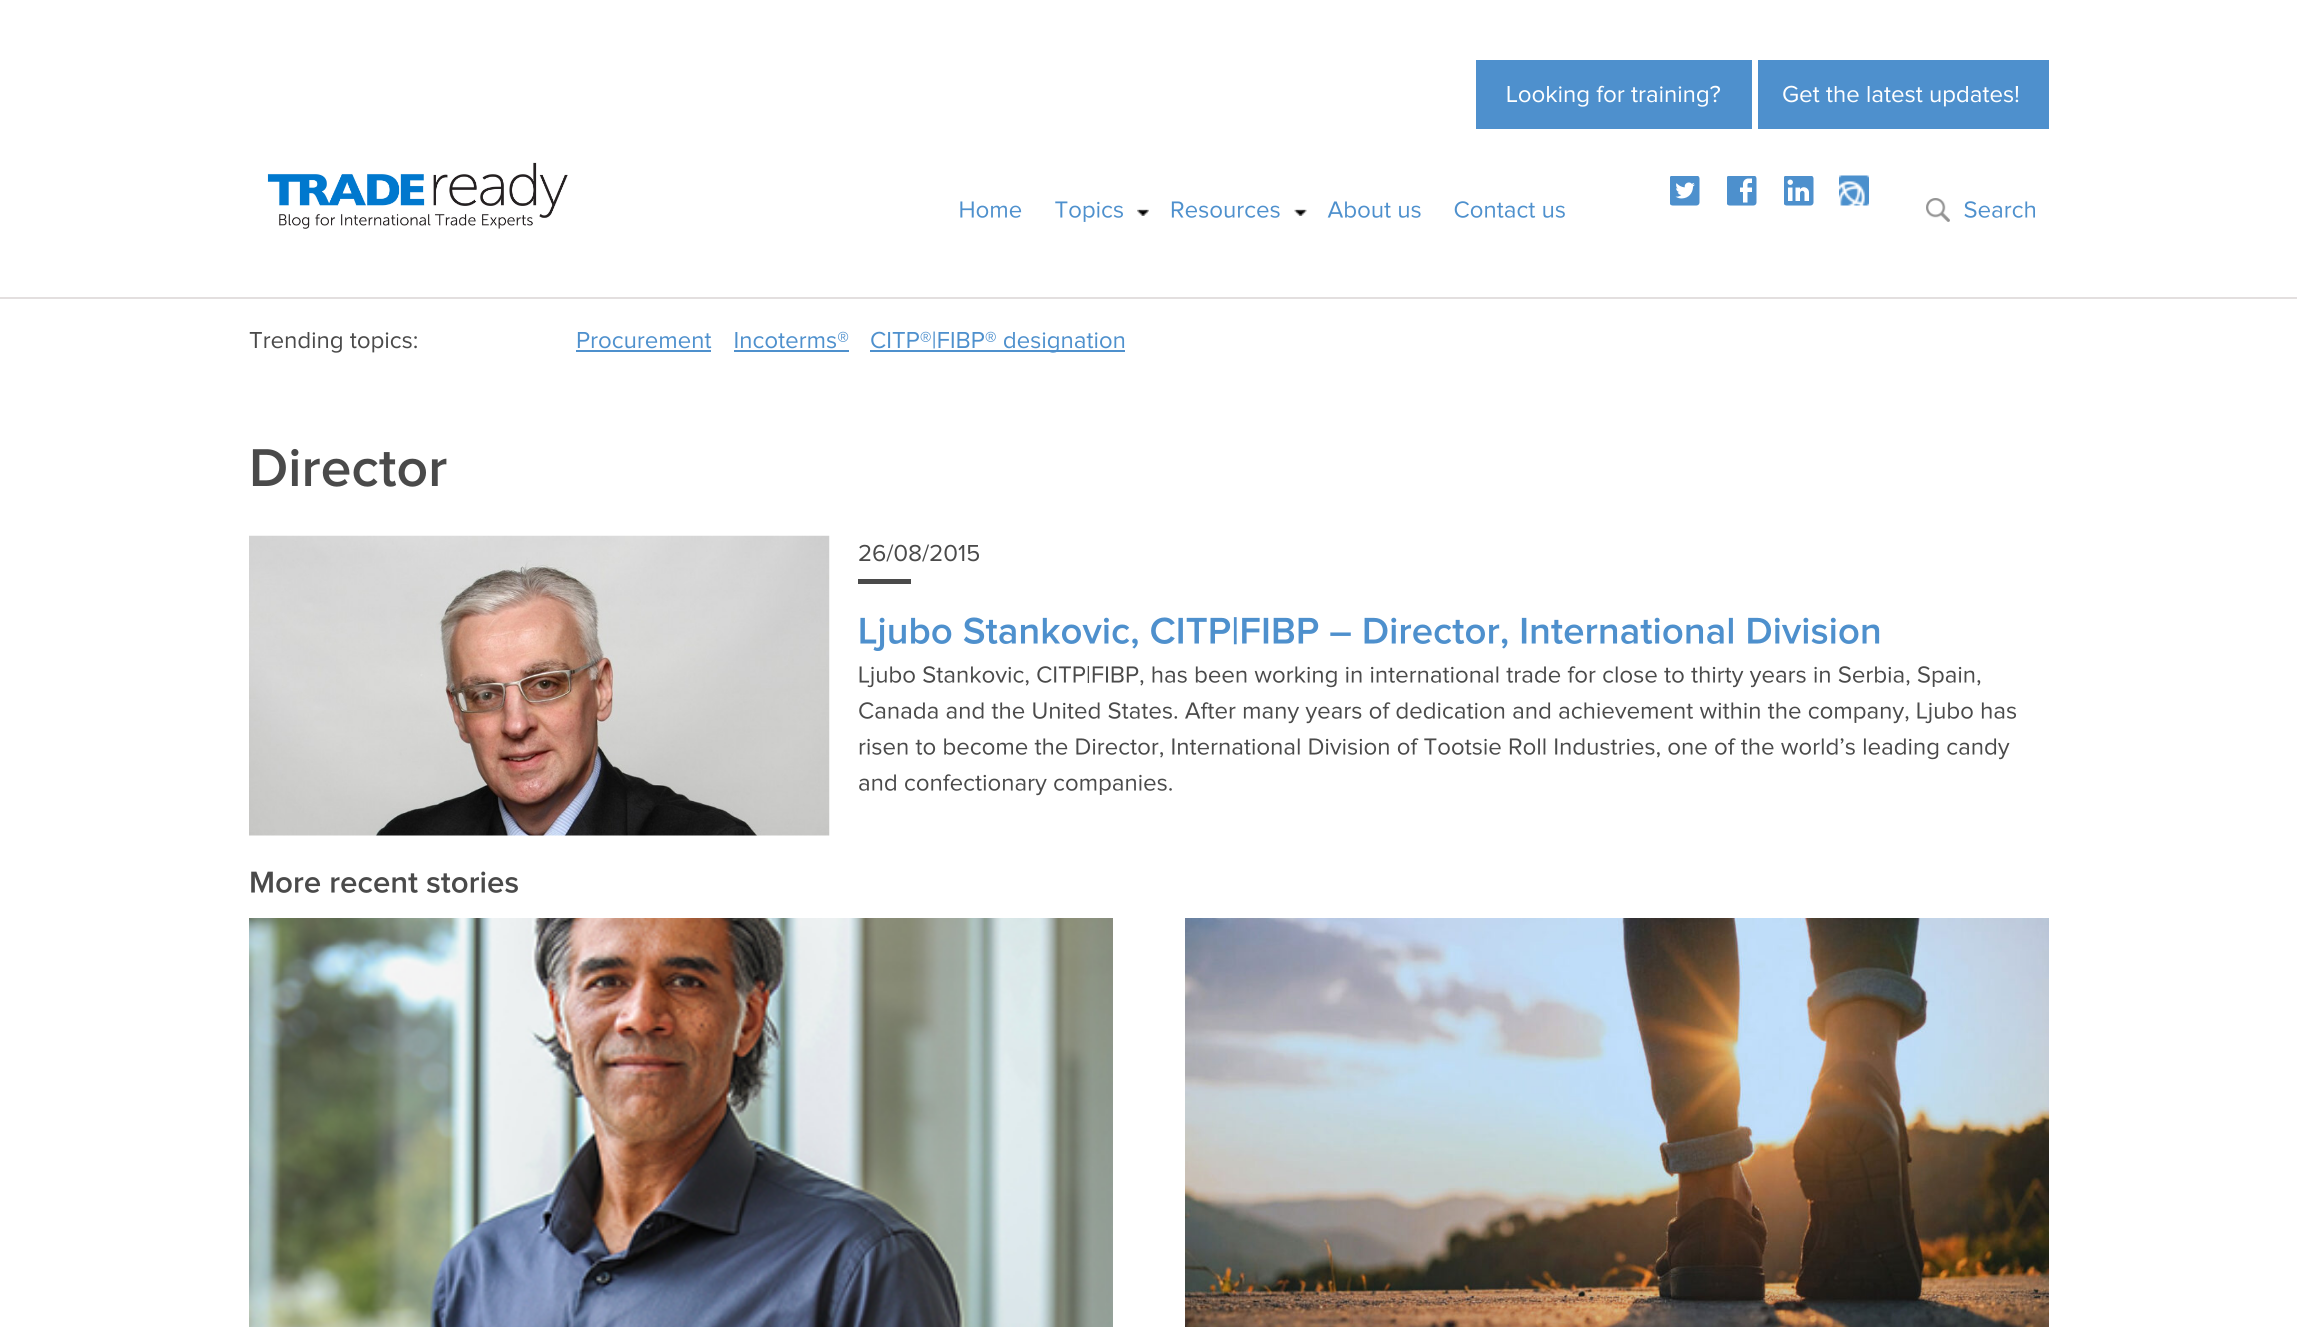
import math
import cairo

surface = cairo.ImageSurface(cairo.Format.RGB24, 2297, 1327)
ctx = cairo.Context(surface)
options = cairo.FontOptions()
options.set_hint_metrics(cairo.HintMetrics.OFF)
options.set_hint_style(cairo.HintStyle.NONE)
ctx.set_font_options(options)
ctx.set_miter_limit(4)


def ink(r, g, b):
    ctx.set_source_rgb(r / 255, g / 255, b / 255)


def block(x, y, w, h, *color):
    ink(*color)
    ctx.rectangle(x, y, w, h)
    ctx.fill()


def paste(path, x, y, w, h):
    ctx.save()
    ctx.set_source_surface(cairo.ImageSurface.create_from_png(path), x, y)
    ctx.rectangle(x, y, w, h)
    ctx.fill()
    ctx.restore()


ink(255, 255, 255)
ctx.paint()
block(0, 297, 2297, 2, 227, 223, 223)
block(1476, 60, 276, 69, 78, 144, 205)
paste("pic1.png", 1507, 85, 214, 22)
block(1758, 60, 291, 69, 78, 144, 205)
paste("pic2.png", 1783, 85, 236, 22)
paste("pic3.png", 267, 162, 301, 67)
paste("pic4.png", 1670, 176, 30, 30)
paste("pic5.png", 1727, 176, 30, 30)
paste("pic6.png", 1784, 176, 30, 30)
paste("pic7.png", 1839, 175, 30, 31)
paste("pic8.png", 960, 201, 62, 17)
paste("pic9.png", 1137, 209, 12, 7)
paste("pic10.png", 1055, 201, 68, 21)
paste("pic11.png", 1294, 209, 13, 7)
paste("pic12.png", 1171, 201, 109, 17)
paste("pic13.png", 1327, 201, 94, 17)
paste("pic14.png", 1454, 201, 111, 17)
paste("pic15.png", 1926, 198, 24, 24)
paste("pic16.png", 1964, 201, 71, 17)
paste("pic17.png", 249, 332, 168, 21)
paste("pic18.png", 577, 332, 135, 17)
paste("pic19.png", 735, 331, 114, 18)
block(870, 350, 255, 2, 78, 144, 205)
paste("pic20.png", 871, 331, 254, 22)
block(576, 350, 135, 2, 78, 144, 205)
block(734, 350, 115, 2, 78, 144, 205)
paste("pic21.png", 252, 448, 195, 39)
paste("pic22.png", 249, 535, 581, 301)
paste("pic23.png", 859, 544, 120, 18)
block(858, 579, 53, 5, 74, 74, 74)
paste("pic24.png", 860, 617, 1020, 34)
paste("pic25.png", 859, 666, 1122, 22)
paste("pic26.png", 859, 702, 1157, 22)
paste("pic27.png", 859, 738, 1151, 22)
paste("pic28.png", 859, 774, 313, 22)
paste("pic29.png", 251, 871, 267, 22)
paste("pic30.png", 249, 918, 864, 409)
paste("pic31.png", 1185, 918, 864, 409)
surface.write_to_png("screenshot.png")
